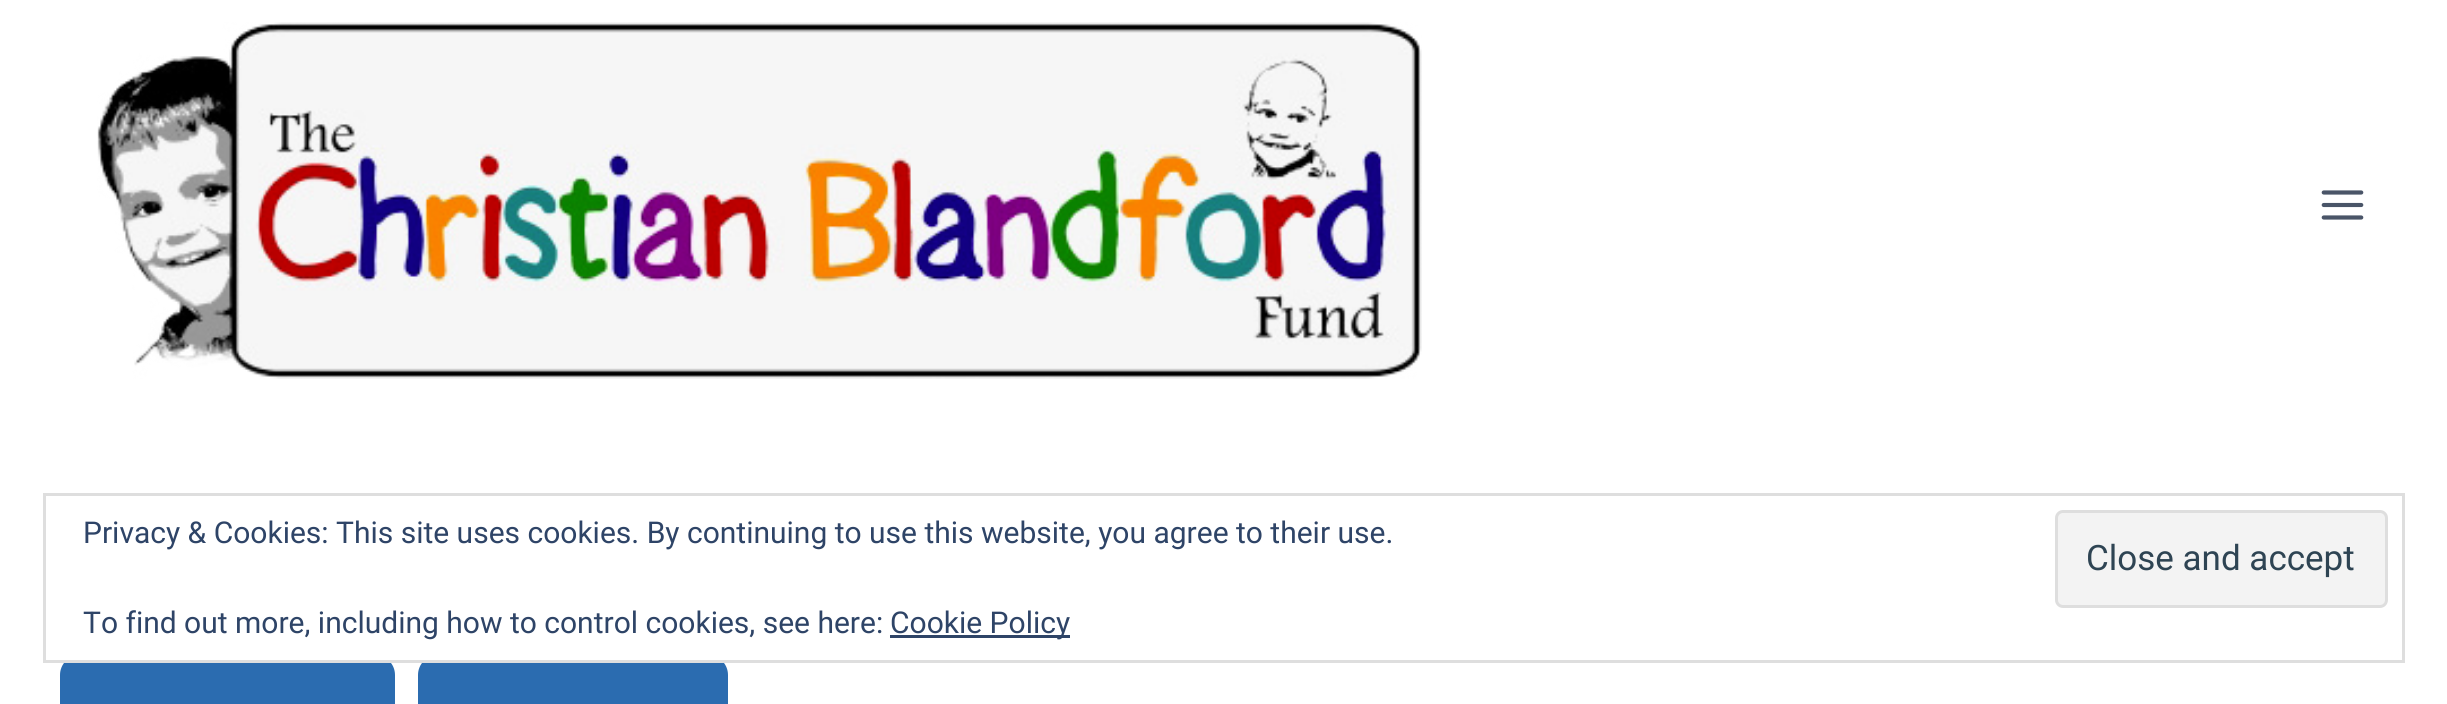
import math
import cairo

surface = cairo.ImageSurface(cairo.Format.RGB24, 2447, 704)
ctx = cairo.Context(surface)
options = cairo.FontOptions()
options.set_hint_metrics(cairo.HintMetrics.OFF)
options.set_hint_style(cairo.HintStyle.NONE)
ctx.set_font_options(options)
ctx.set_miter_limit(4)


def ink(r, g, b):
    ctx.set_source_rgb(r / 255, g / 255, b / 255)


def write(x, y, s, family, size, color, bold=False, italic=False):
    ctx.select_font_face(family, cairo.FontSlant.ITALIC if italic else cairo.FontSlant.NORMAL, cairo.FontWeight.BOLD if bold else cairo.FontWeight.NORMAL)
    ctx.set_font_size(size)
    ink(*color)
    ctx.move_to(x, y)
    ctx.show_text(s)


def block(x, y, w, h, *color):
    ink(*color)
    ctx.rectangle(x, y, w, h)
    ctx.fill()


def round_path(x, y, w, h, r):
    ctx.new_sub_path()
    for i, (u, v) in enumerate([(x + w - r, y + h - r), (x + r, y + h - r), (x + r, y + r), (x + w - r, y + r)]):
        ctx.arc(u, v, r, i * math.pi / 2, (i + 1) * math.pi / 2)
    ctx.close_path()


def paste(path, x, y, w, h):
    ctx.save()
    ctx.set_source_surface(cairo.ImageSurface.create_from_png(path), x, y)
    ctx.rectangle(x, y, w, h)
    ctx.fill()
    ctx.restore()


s1 = dict(family="Roboto", size=30, color=(46, 68, 103))
s2 = dict(family="Roboto", size=35, color=(46, 68, 83))

ink(255, 255, 255)
ctx.paint()
paste("pic1.png", 97, 22, 1325, 357)
paste("pic2.png", 2321, 190, 43, 30)
ink(43, 108, 176)
round_path(60, 655, 335, 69, 20)
ctx.fill()
round_path(418, 655, 310, 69, 20)
ctx.fill()
block(66, 655, 656, 5, 255, 255, 255)
ctx.rectangle(44.5, 494.5, 2359, 167)
ink(222, 222, 222)
ctx.set_line_width(3)
ctx.stroke()
write(83, 543, "Privacy & Cookies: This site uses cookies. By continuing to use this website, you agree to their use.", **s1)
ink(243, 243, 243)
round_path(2056.5, 511.5, 330, 95, 6.5)
ctx.fill_preserve()
ink(222, 222, 222)
ctx.stroke()
write(2086, 570, "Close and accept", **s2)
write(83, 633, "To find out more, including how to control cookies, see here:", **s1)
block(890, 635, 180, 3, 46, 68, 103)
write(890, 633, "Cookie Policy", **s1)
surface.write_to_png("screenshot.png")
